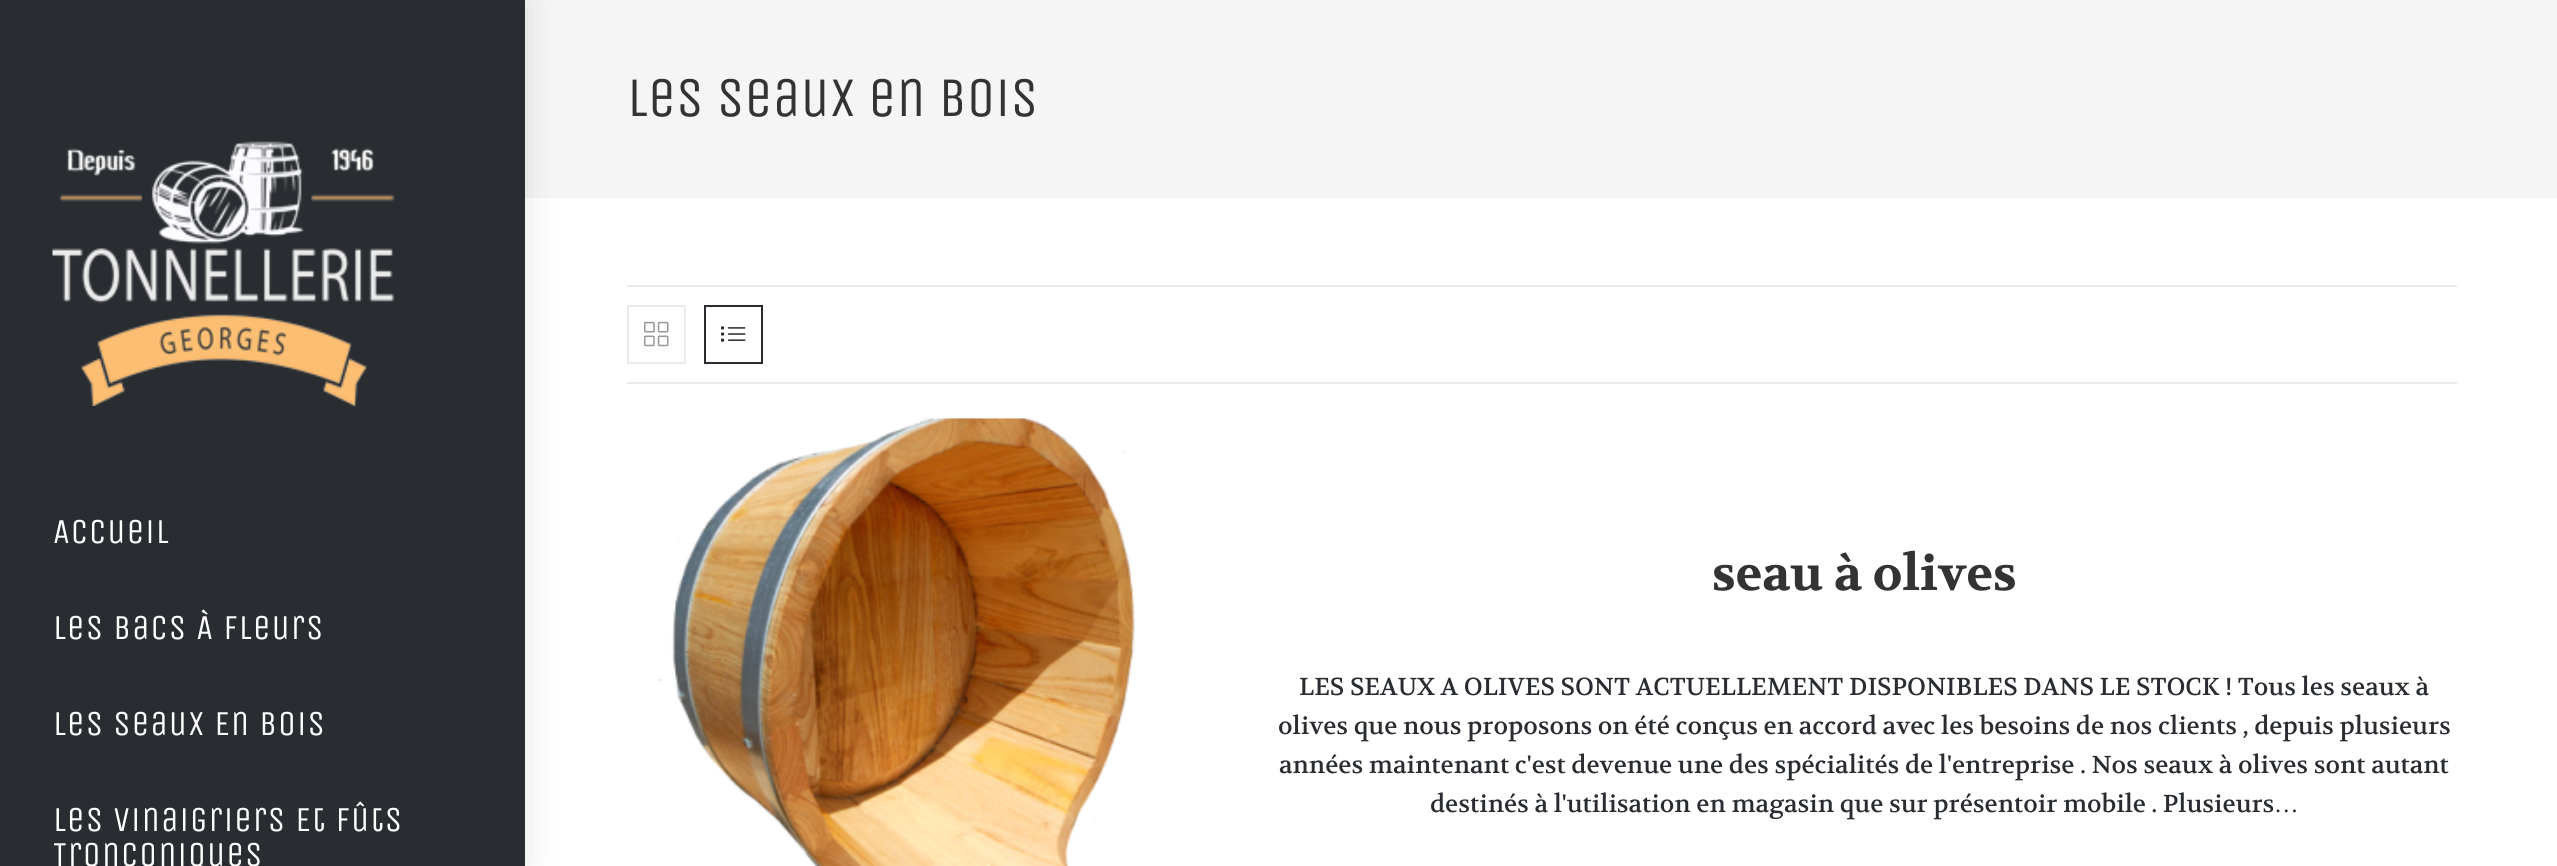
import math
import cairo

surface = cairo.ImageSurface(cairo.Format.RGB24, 2557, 866)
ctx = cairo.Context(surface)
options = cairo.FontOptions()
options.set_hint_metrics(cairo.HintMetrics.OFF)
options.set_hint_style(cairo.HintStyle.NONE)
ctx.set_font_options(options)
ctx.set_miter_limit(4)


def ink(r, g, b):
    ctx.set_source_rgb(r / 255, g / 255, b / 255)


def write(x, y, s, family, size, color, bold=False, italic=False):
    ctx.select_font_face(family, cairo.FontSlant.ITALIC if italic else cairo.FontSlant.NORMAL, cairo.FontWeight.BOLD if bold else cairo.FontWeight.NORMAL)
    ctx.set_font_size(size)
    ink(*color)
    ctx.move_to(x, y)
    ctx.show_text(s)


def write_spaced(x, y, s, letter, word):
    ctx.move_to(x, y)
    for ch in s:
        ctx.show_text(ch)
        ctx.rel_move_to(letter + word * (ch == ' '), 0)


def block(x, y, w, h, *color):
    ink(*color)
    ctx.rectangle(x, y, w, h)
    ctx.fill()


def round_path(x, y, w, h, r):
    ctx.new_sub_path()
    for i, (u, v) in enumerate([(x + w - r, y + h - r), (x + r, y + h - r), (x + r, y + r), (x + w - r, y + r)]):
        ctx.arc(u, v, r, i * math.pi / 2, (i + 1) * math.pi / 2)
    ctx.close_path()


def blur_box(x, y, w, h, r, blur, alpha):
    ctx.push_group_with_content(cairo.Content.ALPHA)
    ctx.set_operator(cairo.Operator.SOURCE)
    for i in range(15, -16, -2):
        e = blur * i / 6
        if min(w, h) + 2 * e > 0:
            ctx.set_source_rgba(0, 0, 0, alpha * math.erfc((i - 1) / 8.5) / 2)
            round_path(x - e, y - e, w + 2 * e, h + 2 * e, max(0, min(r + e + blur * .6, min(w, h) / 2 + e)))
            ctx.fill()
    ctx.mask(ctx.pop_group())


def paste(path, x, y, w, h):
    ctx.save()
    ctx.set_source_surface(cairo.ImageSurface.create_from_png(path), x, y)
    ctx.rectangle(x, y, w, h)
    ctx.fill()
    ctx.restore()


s1 = dict(family="Unica One", size=56, color=(51, 51, 51))
s2 = dict(family="Volkhov", size=49, color=(51, 51, 51), bold=True)
s3 = dict(family="Volkhov", size=24.5, color=(41, 44, 48))
s4 = dict(family="Liberation Serif", size=24.5, color=(41, 44, 48))

ink(255, 255, 255)
ctx.paint()
block(525, 0, 2032, 198, 245, 245, 245)
ink(0, 0, 0)
blur_box(0, 0, 525, 866, 0, 17.5, 0.1)
block(0, 0, 525, 866, 41, 44, 48)
paste("pic1.png", 52, 141, 343, 265)
ctx.select_font_face("Unica One")
ctx.set_font_size(35)
ink(255, 255, 255)
write_spaced(53, 543, "Accueil", 1.05, 0)
write_spaced(53, 639, "Les Bacs À Fleurs", 1.05, 0)
write_spaced(53, 735, "Les Seaux En Bois", 1.05, 0)
write_spaced(53, 831, "Les Vinaigriers Et Fûts", 1.05, 0)
write_spaced(53, 866, "Tronconiques", 1.05, 0)
write(627, 116, "Les seaux en bois", **s1)
block(627, 285, 1830, 2, 234, 234, 234)
block(627, 382, 1830, 2, 234, 234, 234)
ctx.rectangle(628, 306, 57, 57)
ctx.stroke()
paste("pic2.png", 644, 321, 25, 26)
ctx.rectangle(705, 306, 57, 57)
ink(41, 44, 48)
ctx.stroke()
paste("pic3.png", 721, 326, 25, 16)
paste("pic4.png", 658, 418, 477, 448)
write(1712, 590, "seau à olives", **s2)
write(1299, 695, "LES SEAUX A OLIVES SONT ACTUELLEMENT DISPONIBLES DANS LE STOCK ! Tous les seaux à", **s3)
write(1278, 734, "olives que nous proposons on été conçus en accord avec les besoins de nos clients , depuis plusieurs", **s3)
write(1279, 773, "années maintenant c'est devenue une des spécialités de l'entreprise . Nos seaux à olives sont autant", **s3)
write(1430, 812, "destinés à l'utilisation en magasin que sur présentoir mobile . Plusieurs", **s3)
write(2274, 812, "…", **s4)
surface.write_to_png("screenshot.png")
